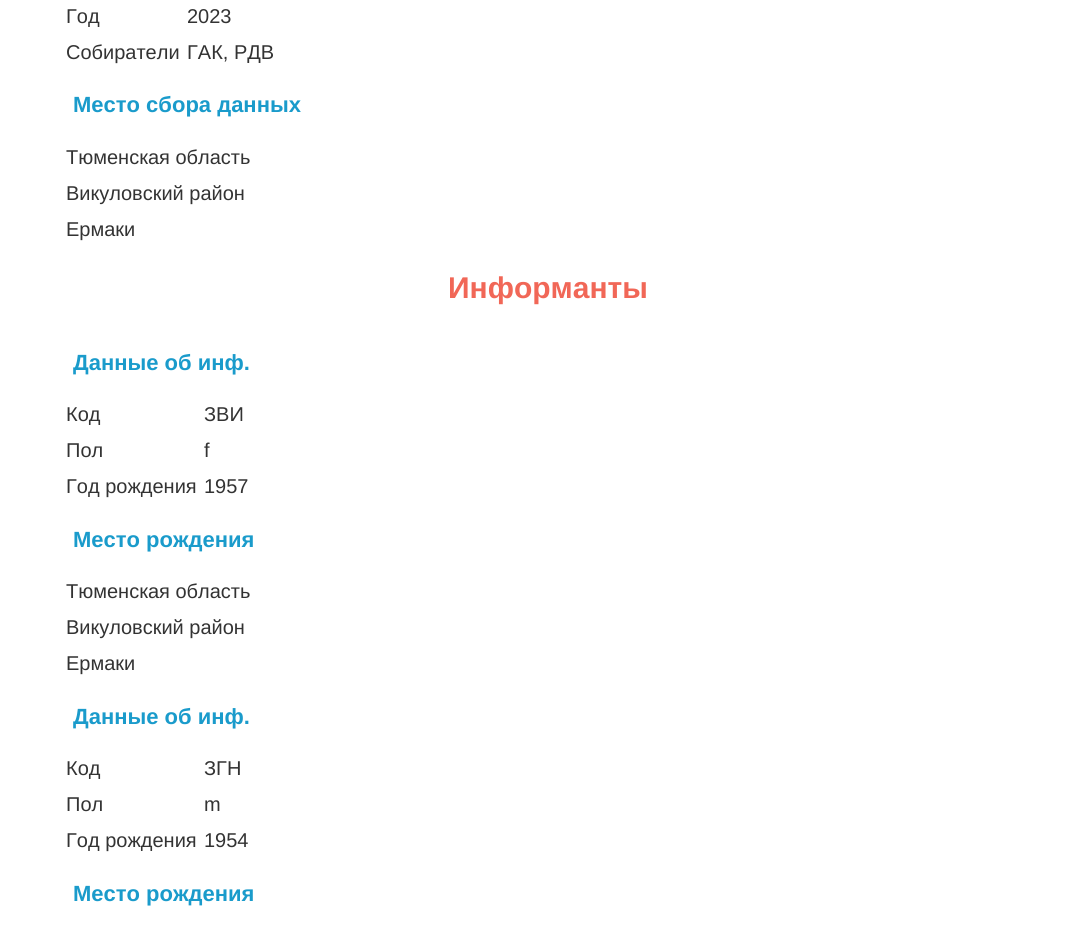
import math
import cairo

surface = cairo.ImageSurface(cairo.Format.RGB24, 1086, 946)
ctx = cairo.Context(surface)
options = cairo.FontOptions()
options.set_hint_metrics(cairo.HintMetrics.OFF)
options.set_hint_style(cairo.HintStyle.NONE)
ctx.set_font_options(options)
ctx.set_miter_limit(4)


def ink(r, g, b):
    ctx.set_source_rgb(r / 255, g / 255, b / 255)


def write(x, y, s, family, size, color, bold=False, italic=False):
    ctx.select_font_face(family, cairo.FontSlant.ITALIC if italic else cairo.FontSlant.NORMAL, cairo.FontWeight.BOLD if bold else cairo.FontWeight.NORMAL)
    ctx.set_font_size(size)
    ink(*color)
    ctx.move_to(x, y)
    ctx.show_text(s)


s1 = dict(family="Liberation Sans", size=20, color=(51, 51, 51))
s2 = dict(family="Liberation Sans", size=22, color=(26, 155, 203), bold=True)
s3 = dict(family="Liberation Sans", size=30, color=(241, 103, 87), bold=True)

ink(255, 255, 255)
ctx.paint()
write(66, 23, "Год", **s1)
write(187, 23, "2023", **s1)
write(66, 59, "Собиратели", **s1)
write(187, 59, "ГАК, РДВ", **s1)
write(73, 112, "Место сбора данных", **s2)
write(66, 164, "Тюменская область", **s1)
write(66, 200, "Викуловский район", **s1)
write(66, 236, "Ермаки", **s1)
write(448, 298, "Информанты", **s3)
write(73, 370, "Данные об инф.", **s2)
write(66, 421, "Код", **s1)
write(204, 421, "ЗВИ", **s1)
write(66, 457, "Пол", **s1)
write(204, 457, "f", **s1)
write(66, 493, "Год рождения", **s1)
write(204, 493, "1957", **s1)
write(73, 547, "Место рождения", **s2)
write(66, 598, "Тюменская область", **s1)
write(66, 634, "Викуловский район", **s1)
write(66, 670, "Ермаки", **s1)
write(73, 724, "Данные об инф.", **s2)
write(66, 775, "Код", **s1)
write(204, 775, "ЗГН", **s1)
write(66, 811, "Пол", **s1)
write(204, 811, "m", **s1)
write(66, 847, "Год рождения", **s1)
write(204, 847, "1954", **s1)
write(73, 901, "Место рождения", **s2)
surface.write_to_png("screenshot.png")
